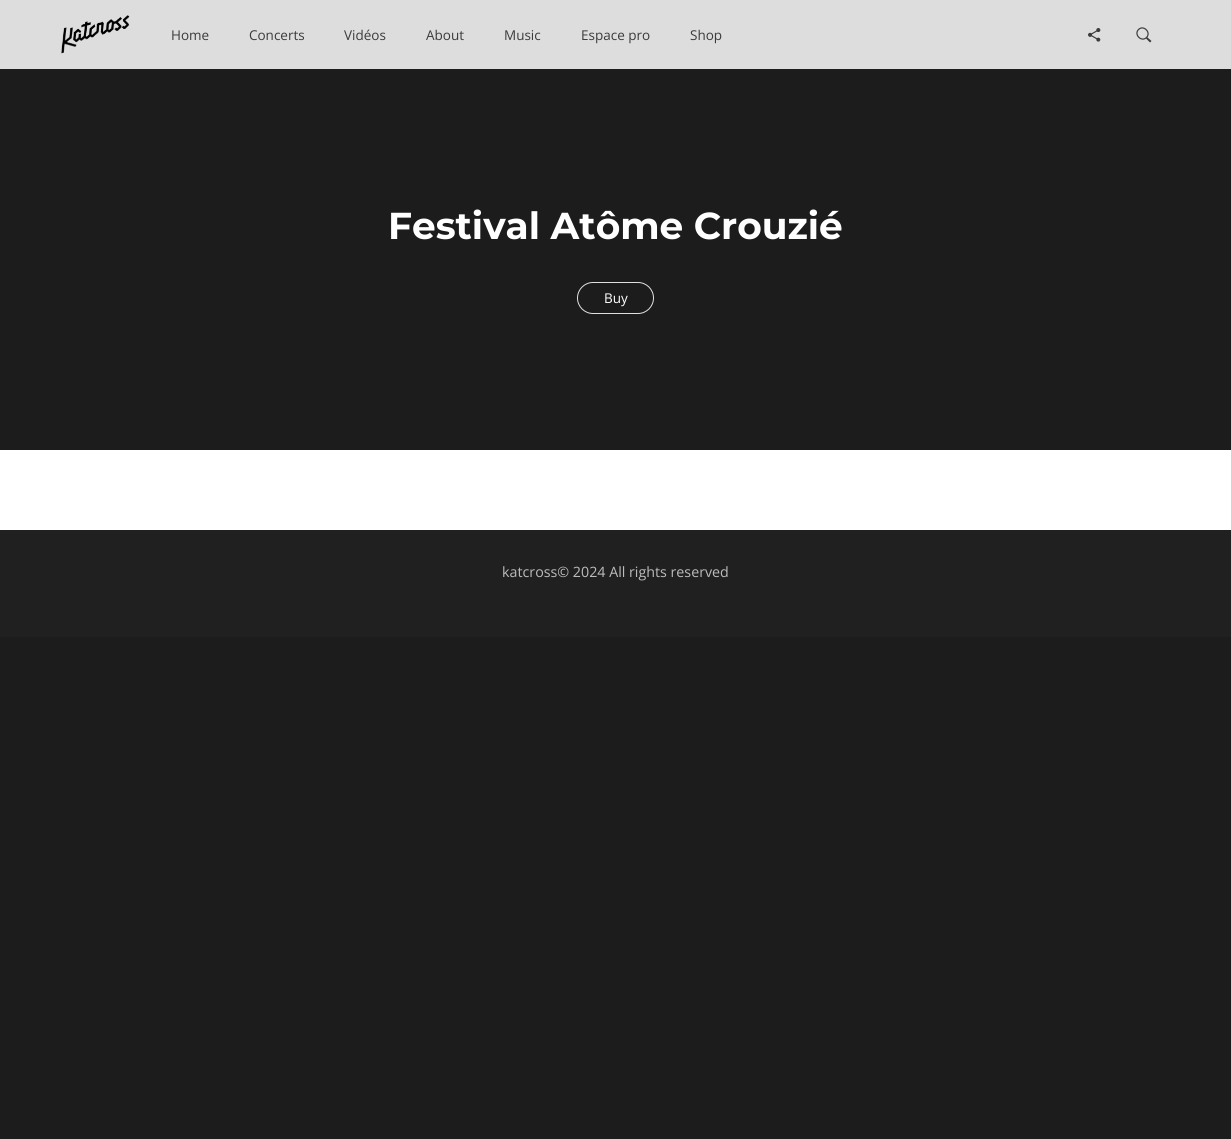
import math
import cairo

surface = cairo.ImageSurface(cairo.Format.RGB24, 1231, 1139)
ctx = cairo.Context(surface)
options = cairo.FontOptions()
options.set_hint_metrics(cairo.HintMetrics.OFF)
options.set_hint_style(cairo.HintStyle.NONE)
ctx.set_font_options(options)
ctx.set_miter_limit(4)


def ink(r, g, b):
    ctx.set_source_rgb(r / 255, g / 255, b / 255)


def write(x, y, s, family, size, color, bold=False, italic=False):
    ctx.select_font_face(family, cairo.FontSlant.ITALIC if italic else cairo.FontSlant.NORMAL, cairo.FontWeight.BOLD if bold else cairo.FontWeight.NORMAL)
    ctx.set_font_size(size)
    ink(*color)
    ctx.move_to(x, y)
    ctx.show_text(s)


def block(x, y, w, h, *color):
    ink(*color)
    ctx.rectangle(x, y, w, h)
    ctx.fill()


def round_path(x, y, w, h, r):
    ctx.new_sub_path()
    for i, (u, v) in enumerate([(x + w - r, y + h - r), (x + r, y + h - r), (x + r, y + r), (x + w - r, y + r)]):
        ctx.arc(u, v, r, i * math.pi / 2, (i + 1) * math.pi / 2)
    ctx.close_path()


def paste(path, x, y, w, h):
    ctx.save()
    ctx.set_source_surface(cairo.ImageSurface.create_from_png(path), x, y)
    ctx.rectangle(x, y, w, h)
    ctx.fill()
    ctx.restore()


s1 = dict(family="Open Sans", size=13.5, color=(59, 59, 59))
s2 = dict(family="Montserrat", size=37.5, color=(255, 255, 255), bold=True)
s3 = dict(family="Open Sans", size=13.5, color=(255, 255, 255))
s4 = dict(family="Open Sans", size=14.25, color=(188, 188, 188))

ink(28, 28, 28)
ctx.paint()
block(0, 0, 1231, 69, 221, 221, 221)
paste("pic1.png", 61, 15, 69, 39)
write(171, 40, "Home", **s1)
write(249, 40, "Concerts", **s1)
write(344, 40, "Vidéos", **s1)
write(426, 40, "About", **s1)
write(504, 40, "Music", **s1)
write(581, 40, "Espace pro", **s1)
write(690, 40, "Shop", **s1)
paste("pic2.png", 1088, 28, 13, 14)
ctx.new_path()
ctx.move_to(1138.5, 29.5)
ctx.curve_to(1143.5, 24.5, 1151.5, 32.5, 1146.5, 37.5)
ctx.curve_to(1141.5, 42.5, 1133.5, 34.5, 1138.5, 29.5)
ctx.close_path()
ctx.set_line_width(1.2)
ctx.stroke()
ctx.new_path()
ctx.move_to(1146, 38.5)
ctx.line_to(1147, 37)
ctx.line_to(1151.5, 41)
ctx.line_to(1150, 42.5)
ctx.close_path()
ctx.fill()
block(0, 450, 1231, 80, 255, 255, 255)
write(388, 239, "Festival Atôme Crouzié", **s2)
round_path(577.5, 282.5, 76, 31, 15.5)
ink(224, 224, 224)
ctx.set_line_width(1)
ctx.stroke()
write(604, 303, "Buy", **s3)
block(0, 530, 1231, 107, 32, 32, 32)
write(502, 577, "katcross© 2024 All rights reserved", **s4)
surface.write_to_png("screenshot.png")
